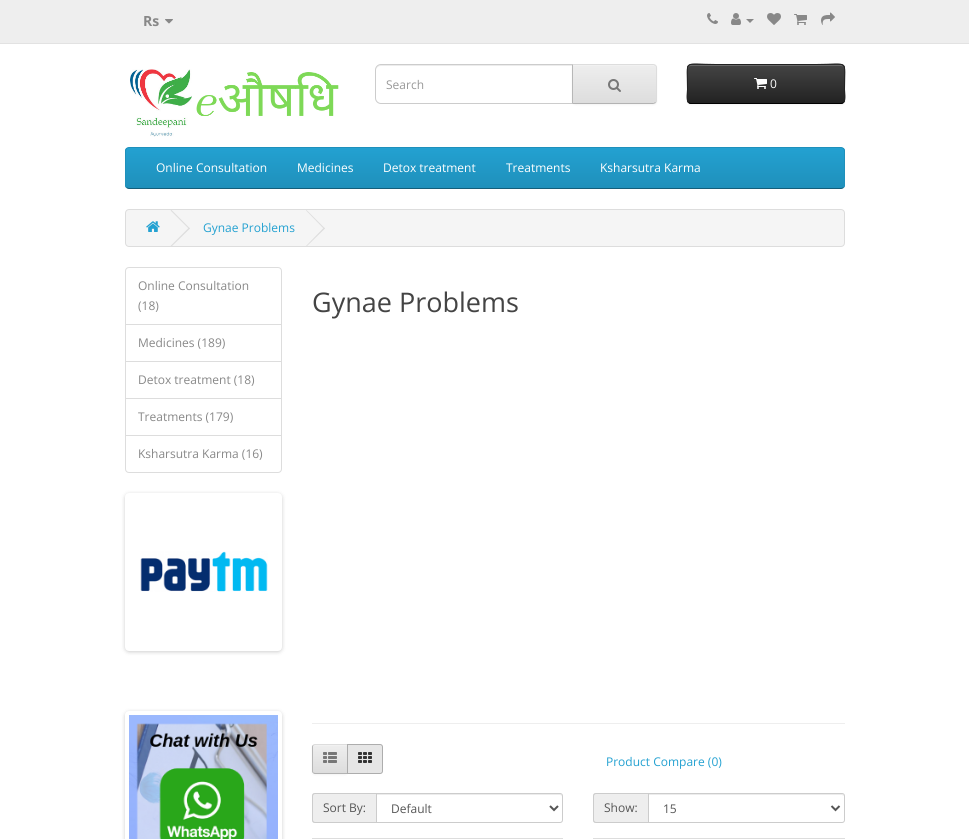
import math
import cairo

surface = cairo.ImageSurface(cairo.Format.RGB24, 969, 839)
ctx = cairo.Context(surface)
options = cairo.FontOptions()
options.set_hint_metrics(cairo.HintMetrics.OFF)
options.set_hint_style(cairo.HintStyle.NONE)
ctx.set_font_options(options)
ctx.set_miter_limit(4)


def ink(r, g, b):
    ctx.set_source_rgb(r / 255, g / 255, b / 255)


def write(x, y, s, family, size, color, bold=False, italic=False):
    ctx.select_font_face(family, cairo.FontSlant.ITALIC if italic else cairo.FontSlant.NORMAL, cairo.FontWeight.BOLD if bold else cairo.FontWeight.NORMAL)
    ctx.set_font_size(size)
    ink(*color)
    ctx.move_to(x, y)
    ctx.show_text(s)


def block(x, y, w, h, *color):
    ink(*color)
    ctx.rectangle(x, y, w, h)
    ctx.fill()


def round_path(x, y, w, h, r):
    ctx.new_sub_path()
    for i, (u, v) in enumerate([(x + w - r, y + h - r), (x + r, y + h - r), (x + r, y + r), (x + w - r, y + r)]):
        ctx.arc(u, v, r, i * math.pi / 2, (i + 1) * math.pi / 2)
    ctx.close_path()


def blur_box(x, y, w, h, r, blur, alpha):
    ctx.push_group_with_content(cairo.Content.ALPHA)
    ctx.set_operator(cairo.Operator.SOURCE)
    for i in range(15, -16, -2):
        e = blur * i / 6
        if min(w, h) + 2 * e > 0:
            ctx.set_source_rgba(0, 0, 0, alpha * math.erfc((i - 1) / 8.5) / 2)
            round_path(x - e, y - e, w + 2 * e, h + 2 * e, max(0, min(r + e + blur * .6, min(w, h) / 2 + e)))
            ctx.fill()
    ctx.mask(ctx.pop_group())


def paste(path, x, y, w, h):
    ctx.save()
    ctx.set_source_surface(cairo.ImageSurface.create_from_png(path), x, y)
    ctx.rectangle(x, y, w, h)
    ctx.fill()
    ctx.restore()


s1 = dict(family="Open Sans", size=14, color=(136, 136, 136), bold=True)
s2 = dict(family="Open Sans", size=12, color=(153, 153, 153))
s3 = dict(family="Open Sans", size=12, color=(255, 255, 255))
s4 = dict(family="Open Sans", size=12, color=(35, 161, 209))
s5 = dict(family="Open Sans", size=12, color=(136, 136, 136))
s6 = dict(family="Open Sans", size=27, color=(68, 68, 68))
s7 = dict(family="Open Sans", size=12, color=(85, 85, 85))

ink(255, 255, 255)
ctx.paint()
block(0, 0, 969, 43, 238, 238, 238)
block(0, 43, 969, 1, 226, 226, 226)
write(143, 26, "Rs", **s1)
paste("pic1.png", 165, 19, 8, 5)
paste("pic2.png", 707, 13, 11, 11)
paste("pic3.png", 731, 13, 10, 12)
ctx.new_path()
ctx.move_to(746, 19)
ctx.line_to(754, 19)
ctx.line_to(750, 23)
ctx.close_path()
ctx.fill()
paste("pic4.png", 767, 13, 14, 12)
paste("pic5.png", 794, 14, 13, 11)
paste("pic6.png", 821, 12, 14, 13)
paste("pic7.png", 130, 69, 209, 68)
ink(236, 236, 236)
ctx.new_path()
ctx.move_to(381, 66)
ctx.line_to(572, 66)
ctx.line_to(572, 65)
ctx.line_to(380, 65)
ctx.curve_to(377, 66, 376, 68, 376, 71)
ctx.curve_to(376, 68, 378, 66, 381, 66)
ctx.close_path()
ctx.fill()
ctx.new_path()
ctx.move_to(381, 64.5)
ctx.line_to(572.5, 64.5)
ctx.line_to(572.5, 103.5)
ctx.line_to(381, 103.5)
ctx.curve_to(378, 103.5, 375.5, 101, 375.5, 98)
ctx.line_to(375.5, 70)
ctx.curve_to(375.5, 67, 378, 64.5, 381, 64.5)
ctx.close_path()
ink(204, 204, 204)
ctx.set_line_width(1)
ctx.stroke()
write(386, 89, "Search", **s2)
ink(0, 0, 0)
blur_box(572, 65, 85, 40, 4, 1, 0.05)
ink(231, 231, 231)
ctx.new_path()
ctx.move_to(572, 64)
ctx.line_to(653, 64)
ctx.curve_to(655, 64, 657, 66, 657, 68)
ctx.line_to(657, 100)
ctx.curve_to(657, 102, 655, 104, 653, 104)
ctx.line_to(572, 104)
ctx.close_path()
ctx.fill()
ctx.save()
ctx.new_path()
ctx.move_to(572, 64)
ctx.line_to(653, 64)
ctx.curve_to(655, 64, 657, 66, 657, 68)
ctx.line_to(657, 100)
ctx.curve_to(657, 102, 655, 104, 653, 104)
ctx.line_to(572, 104)
ctx.close_path()
ctx.clip()
gradient = cairo.LinearGradient(615, 65, 615, 103)
gradient.add_color_stop_rgba(0, 0.933, 0.933, 0.933, 1)
gradient.add_color_stop_rgba(1, 0.867, 0.867, 0.867, 1)
ctx.set_source(gradient)
ctx.rectangle(573, 65, 84, 38)
ctx.fill()
ctx.restore()
ink(241, 241, 241)
ctx.new_path()
ctx.move_to(573, 66)
ctx.line_to(653, 66)
ctx.curve_to(655, 66, 656, 67, 656, 69)
ctx.line_to(656, 68)
ctx.curve_to(656, 66, 655, 65, 653, 65)
ctx.line_to(573, 65)
ctx.close_path()
ctx.fill()
ink(221, 221, 221)
ctx.new_path()
ctx.move_to(572, 64)
ctx.line_to(573, 65)
ctx.line_to(654, 65)
ctx.line_to(655, 66)
ctx.line_to(656, 65)
ctx.line_to(653, 64)
ctx.close_path()
ctx.fill()
ctx.new_path()
ctx.move_to(657, 100)
ctx.line_to(657, 68)
ctx.curve_to(657, 67, 656.5, 66, 656, 65)
ctx.line_to(655, 66)
ctx.curve_to(656, 66, 656, 67, 656, 68)
ctx.line_to(656, 100)
ctx.curve_to(656, 101, 656, 102, 655, 102)
ctx.line_to(656, 103)
ctx.curve_to(656.5, 102, 657, 101, 657, 100)
ctx.close_path()
ctx.fill()
ink(179, 179, 179)
ctx.new_path()
ctx.move_to(653, 104)
ctx.line_to(656, 103)
ctx.line_to(655, 102)
ctx.line_to(654, 103)
ctx.line_to(573, 103)
ctx.line_to(572, 104)
ctx.close_path()
ctx.fill()
ink(183, 183, 183)
ctx.new_path()
ctx.move_to(572, 64)
ctx.line_to(572, 104)
ctx.line_to(573, 103)
ctx.line_to(573, 65)
ctx.close_path()
ctx.fill()
paste("pic8.png", 608, 79, 13, 13)
ink(0, 0, 0)
blur_box(687, 65, 158, 40, 4, 1, 0.05)
ink(54, 54, 54)
round_path(687, 64, 158, 40, 4)
ctx.fill()
ctx.save()
round_path(687, 64, 158, 40, 4)
ctx.clip()
gradient = cairo.LinearGradient(766, 65, 766, 103)
gradient.add_color_stop_rgba(0, 0.267, 0.267, 0.267, 1)
gradient.add_color_stop_rgba(1, 0.133, 0.133, 0.133, 1)
ctx.set_source(gradient)
ctx.rectangle(687, 65, 158, 38)
ctx.fill()
ctx.restore()
ink(105, 105, 105)
ctx.new_path()
ctx.move_to(691, 66)
ctx.line_to(841, 66)
ctx.curve_to(843, 66, 844, 67, 844, 69)
ctx.curve_to(844, 67, 843, 65, 841, 65)
ctx.line_to(690, 65)
ctx.curve_to(688, 65, 688, 67, 688, 69)
ctx.curve_to(688, 67, 689, 66, 691, 66)
ctx.close_path()
ctx.fill()
ctx.new_path()
ctx.move_to(843.5, 102.5)
ctx.curve_to(843, 103, 842, 103.5, 841, 103.5)
ctx.line_to(691, 103.5)
ctx.curve_to(690, 103.5, 689, 103, 688.5, 102.5)
ink(0, 0, 0)
ctx.stroke()
ctx.new_path()
ctx.move_to(688.5, 102.5)
ctx.curve_to(686, 100, 687.5, 92, 687.5, 89.5)
ctx.curve_to(687.5, 58, 682, 64.5, 716, 64.5)
ctx.line_to(816, 64.5)
ctx.curve_to(850, 64.5, 844.5, 58, 844.5, 89.5)
ctx.curve_to(844.5, 92, 846, 100, 843.5, 102.5)
ink(34, 34, 34)
ctx.stroke()
paste("pic9.png", 754, 78, 13, 11)
write(770, 88, "0", **s3)
ctx.save()
round_path(125, 147, 720, 42, 4)
ctx.clip()
gradient = cairo.LinearGradient(485, 148, 485, 188)
gradient.add_color_stop_rgba(0, 0.137, 0.631, 0.82, 1)
gradient.add_color_stop_rgba(1, 0.122, 0.565, 0.733, 1)
ctx.set_source(gradient)
ctx.rectangle(125, 148, 720, 40)
ctx.fill()
ctx.restore()
ctx.new_path()
ctx.move_to(843.5, 187.5)
ctx.curve_to(843, 188, 842, 188.5, 841, 188.5)
ctx.line_to(129, 188.5)
ctx.curve_to(128, 188.5, 127, 188, 126.5, 187.5)
ink(20, 94, 122)
ctx.stroke()
ctx.new_path()
ctx.move_to(126.5, 187.5)
ctx.curve_to(126, 187, 125.5, 186, 125.5, 185)
ctx.line_to(125.5, 151)
ctx.curve_to(125.5, 150, 126, 149, 126.5, 148.5)
ctx.curve_to(127, 148, 128, 147.5, 129, 147.5)
ctx.line_to(841, 147.5)
ctx.curve_to(842, 147.5, 843, 148, 843.5, 148.5)
ctx.curve_to(844, 149, 844.5, 150, 844.5, 151)
ctx.line_to(844.5, 185)
ctx.curve_to(844.5, 186, 844, 187, 843.5, 187.5)
ink(31, 144, 187)
ctx.stroke()
write(156, 172, "Online Consultation", **s3)
write(297, 172, "Medicines", **s3)
write(383, 172, "Detox treatment", **s3)
write(506, 172, "Treatments", **s3)
write(600, 172, "Ksharsutra Karma", **s3)
ink(245, 245, 245)
round_path(125.5, 209.5, 719, 37, 3.5)
ctx.fill_preserve()
ink(221, 221, 221)
ctx.stroke()
paste("pic10.png", 146, 221, 14, 11)
ctx.new_path()
ctx.move_to(170.5, 210.5)
ctx.line_to(171.5, 210)
ctx.line_to(190, 228.5)
ctx.line_to(189, 229)
ctx.close_path()
ctx.fill()
ctx.new_path()
ctx.move_to(170.5, 246)
ctx.line_to(189, 227.5)
ctx.line_to(190, 228.5)
ctx.line_to(171.5, 246.5)
ctx.close_path()
ctx.fill()
write(203, 232, "Gynae Problems", **s4)
ink(221, 221, 221)
ctx.new_path()
ctx.move_to(306, 210.5)
ctx.line_to(306.5, 210)
ctx.line_to(325, 228.5)
ctx.line_to(324, 229)
ctx.close_path()
ctx.fill()
ctx.new_path()
ctx.move_to(306, 246)
ctx.line_to(324, 227.5)
ctx.line_to(325, 228.5)
ctx.line_to(306.5, 246.5)
ctx.close_path()
ctx.fill()
ctx.new_path()
ctx.move_to(129, 267.5)
ctx.line_to(278, 267.5)
ctx.curve_to(280, 267.5, 281.5, 269, 281.5, 271)
ctx.line_to(281.5, 324.5)
ctx.line_to(125.5, 324.5)
ctx.line_to(125.5, 271)
ctx.curve_to(125.5, 269, 127, 267.5, 129, 267.5)
ctx.close_path()
ctx.stroke()
write(138, 290, "Online Consultation", **s5)
write(138, 310, "(18)", **s5)
ctx.rectangle(125.5, 324.5, 156, 37)
ink(221, 221, 221)
ctx.stroke()
write(138, 347, "Medicines (189)", **s5)
ctx.rectangle(125.5, 361.5, 156, 37)
ink(221, 221, 221)
ctx.stroke()
write(138, 384, "Detox treatment (18)", **s5)
ctx.rectangle(125.5, 398.5, 156, 37)
ink(221, 221, 221)
ctx.stroke()
write(138, 421, "Treatments (179)", **s5)
ink(255, 255, 255)
ctx.new_path()
ctx.move_to(125.5, 435.5)
ctx.line_to(281.5, 435.5)
ctx.line_to(281.5, 469)
ctx.curve_to(281.5, 471, 280, 472.5, 278, 472.5)
ctx.line_to(129, 472.5)
ctx.curve_to(127, 472.5, 125.5, 471, 125.5, 469)
ctx.close_path()
ctx.fill_preserve()
ink(221, 221, 221)
ctx.stroke()
write(138, 458, "Ksharsutra Karma (16)", **s5)
ink(0, 0, 0)
blur_box(125, 494, 157, 158, 4, 2, 0.2)
ink(255, 255, 255)
round_path(127, 495, 153, 154, 2)
ctx.fill_preserve()
ctx.set_line_width(4)
ctx.stroke()
paste("pic11.png", 140, 551, 128, 41)
ink(0, 0, 0)
blur_box(125, 712, 157, 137, 4, 2, 0.2)
ink(255, 255, 255)
round_path(125, 711, 157, 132, 4)
ctx.fill()
paste("pic12.png", 129, 715, 149, 124)
write(312, 312, "Gynae Problems", **s6)
block(312, 723, 533, 1, 238, 238, 238)
ink(0, 0, 0)
blur_box(312, 745, 36, 30, 3, 1, 0.05)
ink(231, 231, 231)
ctx.new_path()
ctx.move_to(315, 744)
ctx.line_to(348, 744)
ctx.line_to(348, 774)
ctx.line_to(315, 774)
ctx.curve_to(313.5, 774, 312, 772.5, 312, 771)
ctx.line_to(312, 747)
ctx.curve_to(312, 745.5, 313.5, 744, 315, 744)
ctx.close_path()
ctx.fill()
ctx.save()
ctx.new_path()
ctx.move_to(315, 744)
ctx.line_to(348, 744)
ctx.line_to(348, 774)
ctx.line_to(315, 774)
ctx.curve_to(313.5, 774, 312, 772.5, 312, 771)
ctx.line_to(312, 747)
ctx.curve_to(312, 745.5, 313.5, 744, 315, 744)
ctx.close_path()
ctx.clip()
gradient = cairo.LinearGradient(330, 745, 330, 773)
gradient.add_color_stop_rgba(0, 0.933, 0.933, 0.933, 1)
gradient.add_color_stop_rgba(1, 0.867, 0.867, 0.867, 1)
ctx.set_source(gradient)
ctx.rectangle(312, 745, 35, 28)
ctx.fill()
ctx.restore()
ink(241, 241, 241)
ctx.new_path()
ctx.move_to(315, 746)
ctx.line_to(347, 746)
ctx.line_to(347, 745)
ctx.line_to(315, 745)
ctx.curve_to(314, 745, 313, 746, 313, 747)
ctx.line_to(313, 748)
ctx.curve_to(313, 747, 314, 746, 315, 746)
ctx.close_path()
ctx.fill()
ink(221, 221, 221)
ctx.new_path()
ctx.move_to(315, 744)
ctx.curve_to(314, 744, 313.5, 744.5, 313, 745)
ctx.line_to(313.5, 745.5)
ctx.line_to(315, 745)
ctx.line_to(347, 745)
ctx.line_to(348, 744)
ctx.close_path()
ctx.fill()
ink(179, 179, 179)
ctx.new_path()
ctx.move_to(348, 774)
ctx.line_to(347, 773)
ctx.line_to(315, 773)
ctx.line_to(313.5, 772.5)
ctx.line_to(313, 773)
ctx.curve_to(313.5, 773.5, 314, 774, 315, 774)
ctx.close_path()
ctx.fill()
ink(183, 183, 183)
ctx.new_path()
ctx.move_to(312, 747)
ctx.line_to(312, 771)
ctx.curve_to(312, 772, 312.5, 772.5, 313, 773)
ctx.line_to(313.5, 772.5)
ctx.curve_to(313, 772, 313, 771.5, 313, 771)
ctx.line_to(313, 747)
ctx.curve_to(313, 746.5, 313, 746, 313.5, 745.5)
ctx.line_to(313, 745)
ctx.curve_to(312.5, 745.5, 312, 746, 312, 747)
ctx.close_path()
ctx.fill()
paste("pic13.png", 323, 752, 14, 11)
ink(230, 230, 230)
ctx.new_path()
ctx.move_to(347.5, 744.5)
ctx.line_to(380, 744.5)
ctx.curve_to(381.5, 744.5, 382.5, 745.5, 382.5, 747)
ctx.line_to(382.5, 771)
ctx.curve_to(382.5, 772.5, 381.5, 773.5, 380, 773.5)
ctx.line_to(347.5, 773.5)
ctx.close_path()
ctx.fill_preserve()
ink(173, 173, 173)
ctx.set_line_width(1)
ctx.stroke()
paste("pic14.png", 358, 752, 14, 11)
write(606, 766, "Product Compare (0)", **s4)
ink(238, 238, 238)
ctx.new_path()
ctx.move_to(315, 793)
ctx.line_to(376, 793)
ctx.line_to(376, 823)
ctx.line_to(315, 823)
ctx.curve_to(313.5, 823, 312, 821.5, 312, 820)
ctx.line_to(312, 796)
ctx.curve_to(312, 794.5, 313.5, 793, 315, 793)
ctx.close_path()
ctx.fill()
ink(204, 204, 204)
ctx.set_fill_rule(cairo.FillRule.EVEN_ODD)
ctx.new_path()
ctx.move_to(315, 793)
ctx.line_to(376, 793)
ctx.line_to(376, 823)
ctx.line_to(315, 823)
ctx.curve_to(313, 823, 312, 822, 312, 820)
ctx.line_to(312, 796)
ctx.curve_to(312, 794, 313, 793, 315, 793)
ctx.close_path()
ctx.move_to(315, 794)
ctx.line_to(376, 794)
ctx.line_to(376, 822)
ctx.line_to(315, 822)
ctx.curve_to(314, 822, 313, 821, 313, 820)
ctx.line_to(313, 796)
ctx.curve_to(313, 795, 314, 794, 315, 794)
ctx.close_path()
ctx.fill()
write(323, 812, "Sort By:", **s7)
ink(236, 236, 236)
ctx.set_fill_rule(cairo.FillRule.WINDING)
ctx.new_path()
ctx.move_to(377, 795)
ctx.line_to(560, 795)
ctx.curve_to(561, 795, 562, 796, 562, 797)
ctx.curve_to(562, 796, 562, 795, 561, 794)
ctx.line_to(377, 794)
ctx.close_path()
ctx.fill()
ctx.new_path()
ctx.move_to(376.5, 793.5)
ctx.line_to(560, 793.5)
ctx.curve_to(561.5, 793.5, 562.5, 794.5, 562.5, 796)
ctx.line_to(562.5, 820)
ctx.curve_to(562.5, 821.5, 561.5, 822.5, 560, 822.5)
ctx.line_to(376.5, 822.5)
ctx.close_path()
ink(204, 204, 204)
ctx.stroke()
ctx.new_path()
ctx.move_to(550, 806)
ctx.line_to(554, 810)
ctx.line_to(558, 806)
ink(85, 85, 85)
ctx.set_line_width(2)
ctx.stroke()
write(391, 813, "Default", **s7)
ink(238, 238, 238)
ctx.new_path()
ctx.move_to(596, 793)
ctx.line_to(648, 793)
ctx.line_to(648, 823)
ctx.line_to(596, 823)
ctx.curve_to(594.5, 823, 593, 821.5, 593, 820)
ctx.line_to(593, 796)
ctx.curve_to(593, 794.5, 594.5, 793, 596, 793)
ctx.close_path()
ctx.fill()
ink(204, 204, 204)
ctx.set_fill_rule(cairo.FillRule.EVEN_ODD)
ctx.new_path()
ctx.move_to(596, 793)
ctx.line_to(648, 793)
ctx.line_to(648, 823)
ctx.line_to(596, 823)
ctx.curve_to(594, 823, 593, 822, 593, 820)
ctx.line_to(593, 796)
ctx.curve_to(593, 794, 594, 793, 596, 793)
ctx.close_path()
ctx.move_to(596, 794)
ctx.line_to(648, 794)
ctx.line_to(648, 822)
ctx.line_to(596, 822)
ctx.curve_to(595, 822, 594, 821, 594, 820)
ctx.line_to(594, 796)
ctx.curve_to(594, 795, 595, 794, 596, 794)
ctx.close_path()
ctx.fill()
write(604, 812, "Show:", **s7)
ink(236, 236, 236)
ctx.set_fill_rule(cairo.FillRule.WINDING)
ctx.new_path()
ctx.move_to(649, 795)
ctx.line_to(842, 795)
ctx.line_to(844, 796)
ctx.line_to(844, 797)
ctx.curve_to(844, 796, 844, 794, 842, 794)
ctx.line_to(649, 794)
ctx.close_path()
ctx.fill()
ctx.new_path()
ctx.move_to(648.5, 793.5)
ctx.line_to(842, 793.5)
ctx.curve_to(843.5, 793.5, 844.5, 794.5, 844.5, 796)
ctx.line_to(844.5, 820)
ctx.curve_to(844.5, 821.5, 843.5, 822.5, 842, 822.5)
ctx.line_to(648.5, 822.5)
ctx.close_path()
ink(204, 204, 204)
ctx.set_line_width(1)
ctx.stroke()
ctx.new_path()
ctx.move_to(831.5, 806)
ctx.line_to(835.5, 810)
ctx.line_to(839.5, 806)
ink(85, 85, 85)
ctx.set_line_width(2)
ctx.stroke()
write(663, 813, "15", **s7)
ctx.rectangle(312.5, 838.5, 250, 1)
ink(221, 221, 221)
ctx.set_line_width(1)
ctx.stroke()
ctx.rectangle(593.5, 838.5, 251, 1)
ctx.stroke()
surface.write_to_png("screenshot.png")
